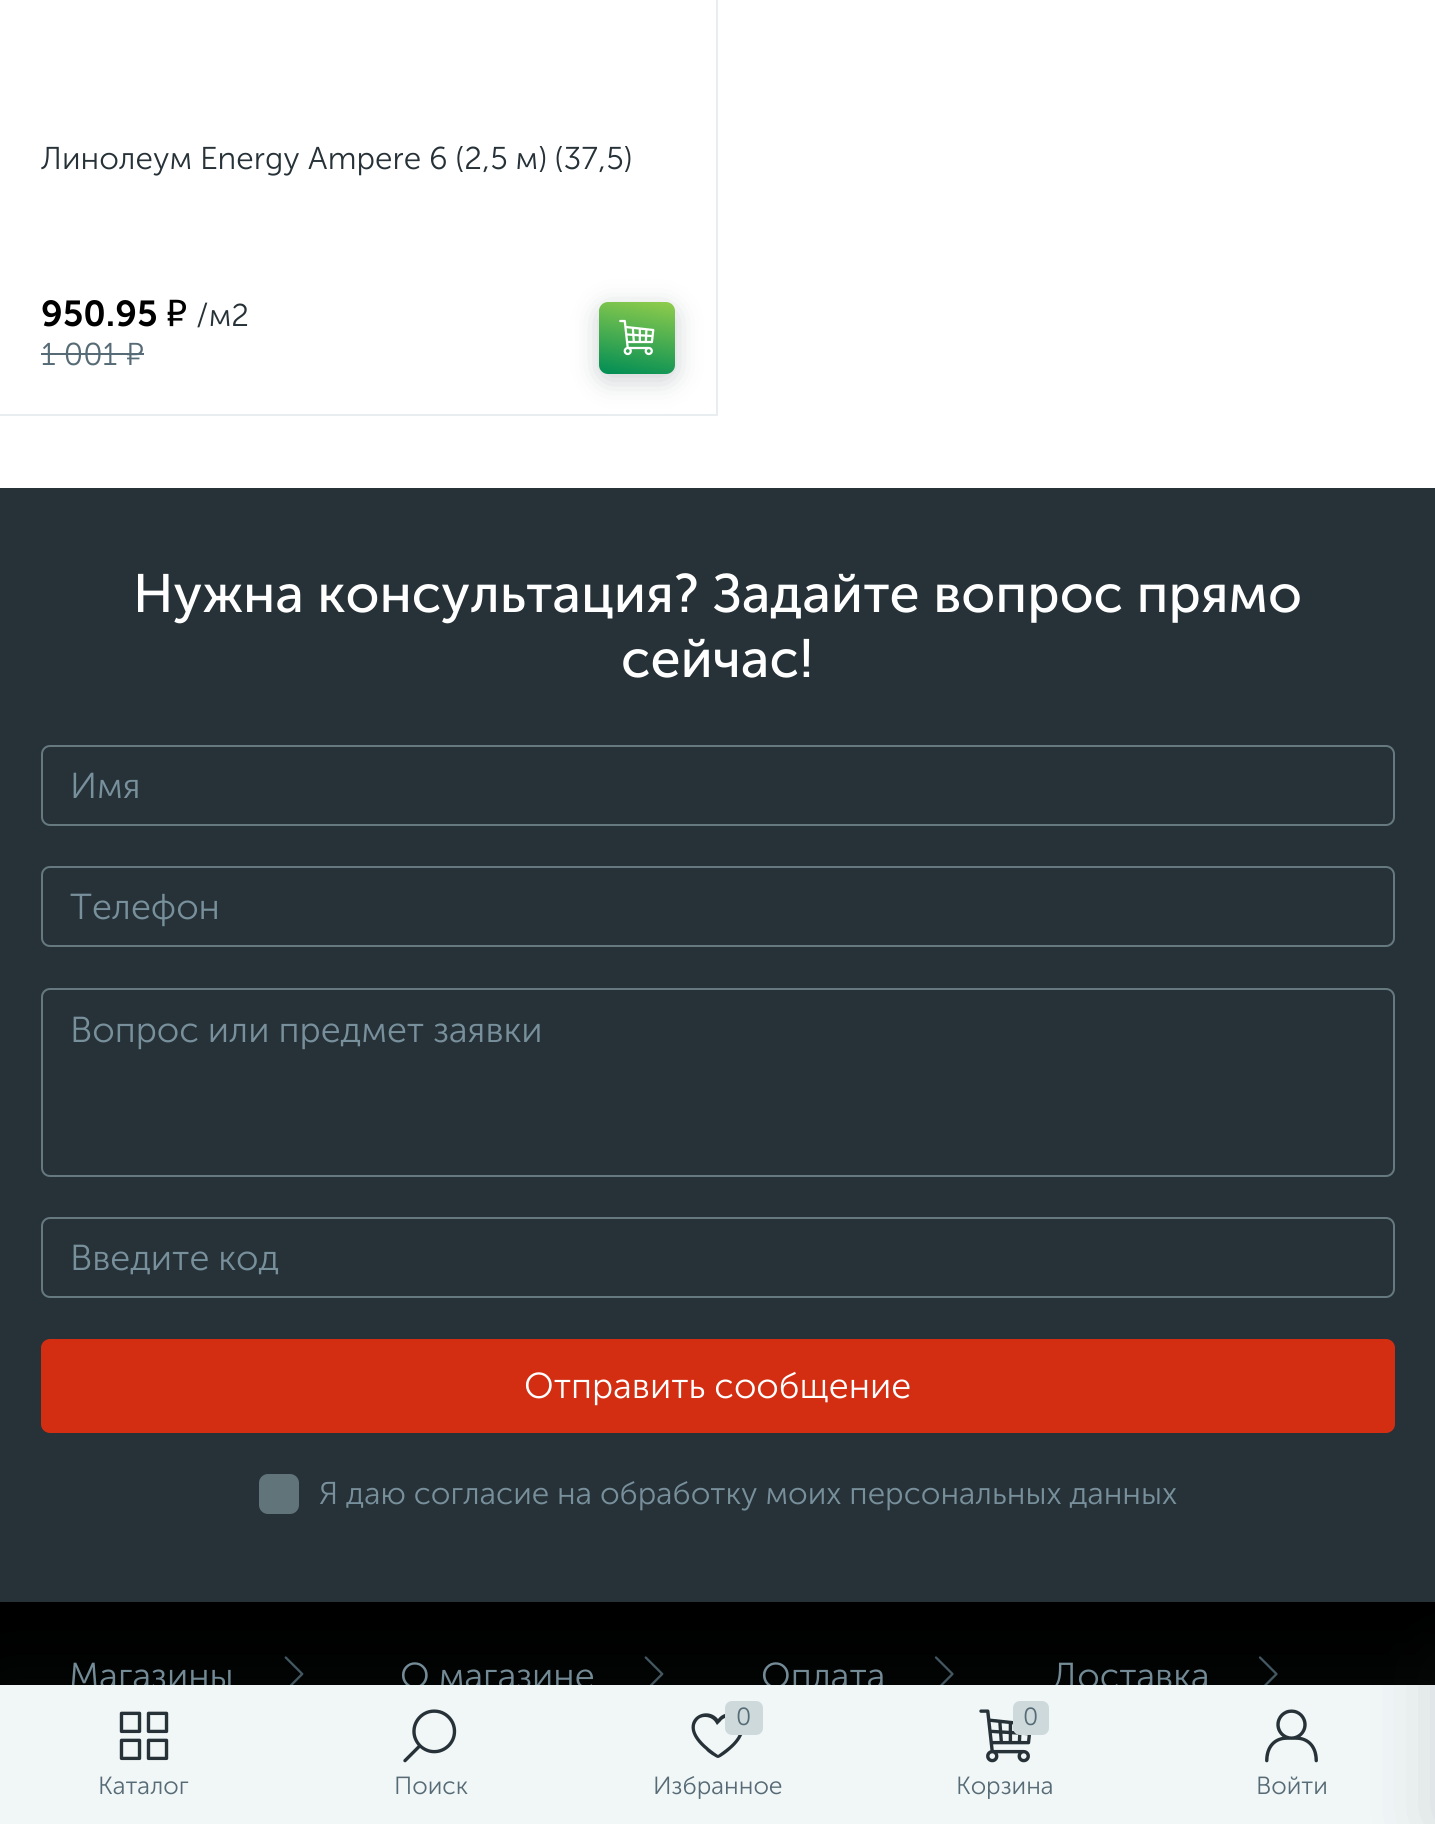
import math
import cairo

surface = cairo.ImageSurface(cairo.Format.RGB24, 1435, 1824)
ctx = cairo.Context(surface)
options = cairo.FontOptions()
options.set_hint_metrics(cairo.HintMetrics.OFF)
options.set_hint_style(cairo.HintStyle.NONE)
ctx.set_font_options(options)
ctx.set_miter_limit(4)


def ink(r, g, b):
    ctx.set_source_rgb(r / 255, g / 255, b / 255)


def write(x, y, s, family, size, color, bold=False, italic=False):
    ctx.select_font_face(family, cairo.FontSlant.ITALIC if italic else cairo.FontSlant.NORMAL, cairo.FontWeight.BOLD if bold else cairo.FontWeight.NORMAL)
    ctx.set_font_size(size)
    ink(*color)
    ctx.move_to(x, y)
    ctx.show_text(s)


def block(x, y, w, h, *color):
    ink(*color)
    ctx.rectangle(x, y, w, h)
    ctx.fill()


def round_path(x, y, w, h, r):
    ctx.new_sub_path()
    for i, (u, v) in enumerate([(x + w - r, y + h - r), (x + r, y + h - r), (x + r, y + r), (x + w - r, y + r)]):
        ctx.arc(u, v, r, i * math.pi / 2, (i + 1) * math.pi / 2)
    ctx.close_path()


def blur_box(x, y, w, h, r, blur, alpha):
    ctx.push_group_with_content(cairo.Content.ALPHA)
    ctx.set_operator(cairo.Operator.SOURCE)
    for i in range(15, -16, -2):
        e = blur * i / 6
        if min(w, h) + 2 * e > 0:
            ctx.set_source_rgba(0, 0, 0, alpha * math.erfc((i - 1) / 8.5) / 2)
            round_path(x - e, y - e, w + 2 * e, h + 2 * e, max(0, min(r + e + blur * .6, min(w, h) / 2 + e)))
            ctx.fill()
    ctx.mask(ctx.pop_group())


def paste(path, x, y, w, h):
    ctx.save()
    ctx.set_source_surface(cairo.ImageSurface.create_from_png(path), x, y)
    ctx.rectangle(x, y, w, h)
    ctx.fill()
    ctx.restore()


s1 = dict(family="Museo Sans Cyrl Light", size=31.5, color=(38, 50, 56))
s2 = dict(family="Museo Sans Cyrl SemiBold", size=36, color=(0, 0, 0))
s3 = dict(family="Museo Sans Cyrl Light", size=31.5, color=(86, 107, 117))
s4 = dict(family="Museo Sans Cyrl Light", size=36, color=(120, 144, 156))
s5 = dict(family="Museo Sans Cyrl", size=54, color=(255, 255, 255))
s6 = dict(family="Museo Sans Cyrl Light", size=36, color=(255, 255, 255))
s7 = dict(family="Museo Sans Cyrl Light", size=31.5, color=(120, 144, 156))
s8 = dict(family="Museo Sans Cyrl Light", size=24.75, color=(86, 107, 117))

ink(255, 255, 255)
ctx.paint()
block(716, 0, 2, 416, 232, 237, 239)
block(0, 414, 718, 2, 232, 237, 239)
write(41, 169, "Линолеум Energy Ampere 6 (2,5 м) (37,5)", **s1)
write(41, 326, "950.95 ₽", **s2)
write(196, 326, "/м2", **s1)
write(41, 365, "1 001 ₽", **s3)
block(41, 353, 103, 2, 86, 107, 117)
ink(38, 50, 56)
blur_box(599, 308, 76, 72, 9, 13.5, 0.24)
gradient = cairo.LinearGradient(629, 379, 644, 296)
gradient.add_color_stop_rgba(0, 0, 0.553, 0.333, 1)
gradient.add_color_stop_rgba(1, 0.569, 0.804, 0.298, 1)
ctx.set_source(gradient)
round_path(599, 302, 76, 72, 9)
ctx.fill()
paste("pic1.png", 619, 319, 36, 37)
block(0, 488, 1435, 1114, 38, 50, 56)
block(0, 1602, 1435, 83, 0, 0, 0)
write(69, 1688, "Магазины", **s4)
write(400, 1688, "О магазине", **s4)
write(761, 1688, "Оплата", **s4)
write(1052, 1688, "Доставка", **s4)
paste("pic2.png", 284, 1656, 20, 29)
paste("pic2.png", 644, 1656, 20, 29)
paste("pic3.png", 934, 1656, 20, 29)
paste("pic3.png", 1258, 1656, 20, 29)
ink(38, 50, 56)
blur_box(0, 1685, 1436, 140, 0, 36, 0.16)
block(0, 1685, 1435, 139, 241, 246, 247)
ink(38, 50, 56)
blur_box(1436, 1663, 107, 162, 0, 36, 0.16)
write(133, 612, "Нужна консультация? Задайте вопрос прямо", **s5)
write(621, 677, "сейчас!", **s5)
round_path(42, 746, 1352, 79, 8)
ink(102, 121, 127)
ctx.stroke()
write(70, 798, "Имя", **s4)
round_path(42, 867, 1352, 79, 8)
ink(102, 121, 127)
ctx.stroke()
write(70, 919, "Телефон", **s4)
round_path(42, 989, 1352, 187, 8)
ink(102, 121, 127)
ctx.stroke()
write(70, 1042, "Вопрос или предмет заявки", **s4)
round_path(42, 1218, 1352, 79, 8)
ink(102, 121, 127)
ctx.stroke()
write(70, 1270, "Введите код", **s4)
ink(212, 46, 18)
round_path(41, 1339, 1354, 94, 9)
ctx.fill()
write(524, 1398, "Отправить сообщение", **s6)
ink(97, 116, 122)
round_path(259, 1474, 40, 40, 9)
ctx.fill()
write(319, 1504, "Я даю согласие на обработку моих персональных данных", **s7)
paste("pic4.png", 119, 1711, 50, 50)
write(98, 1794, "Каталог", **s8)
paste("pic5.png", 403, 1709, 54, 54)
write(394, 1794, "Поиск", **s8)
ink(38, 50, 56)
ctx.new_path()
ctx.move_to(718, 1758)
ctx.curve_to(716, 1758, 707, 1752, 706, 1750)
ctx.curve_to(673, 1723, 705, 1703, 718, 1719)
ctx.curve_to(730, 1703, 762, 1723, 730, 1750)
ctx.curve_to(728, 1752, 720, 1758, 718, 1758)
ctx.close_path()
ctx.move_to(705, 1717)
ctx.curve_to(702, 1717, 699, 1718, 697, 1721)
ctx.curve_to(688, 1733, 709, 1749, 718, 1755)
ctx.curve_to(726, 1749, 735, 1743, 739, 1734)
ctx.curve_to(744, 1725, 737, 1714, 727, 1717)
ctx.curve_to(725, 1718, 722, 1719, 721, 1721)
ctx.line_to(718, 1724)
ctx.line_to(717, 1725)
ctx.curve_to(716, 1724, 714, 1717, 705, 1717)
ctx.close_path()
ctx.fill()
ink(206, 217, 219)
round_path(725, 1701, 38, 34, 7)
ctx.fill()
write(736, 1725, "0", **s8)
write(653, 1794, "Избранное", **s8)
paste("pic6.png", 979, 1709, 52, 54)
ink(206, 217, 219)
round_path(1013, 1701, 36, 34, 7)
ctx.fill()
write(1023, 1725, "0", **s8)
write(956, 1794, "Корзина", **s8)
paste("pic7.png", 1265, 1709, 53, 54)
write(1256, 1794, "Войти", **s8)
surface.write_to_png("screenshot.png")
